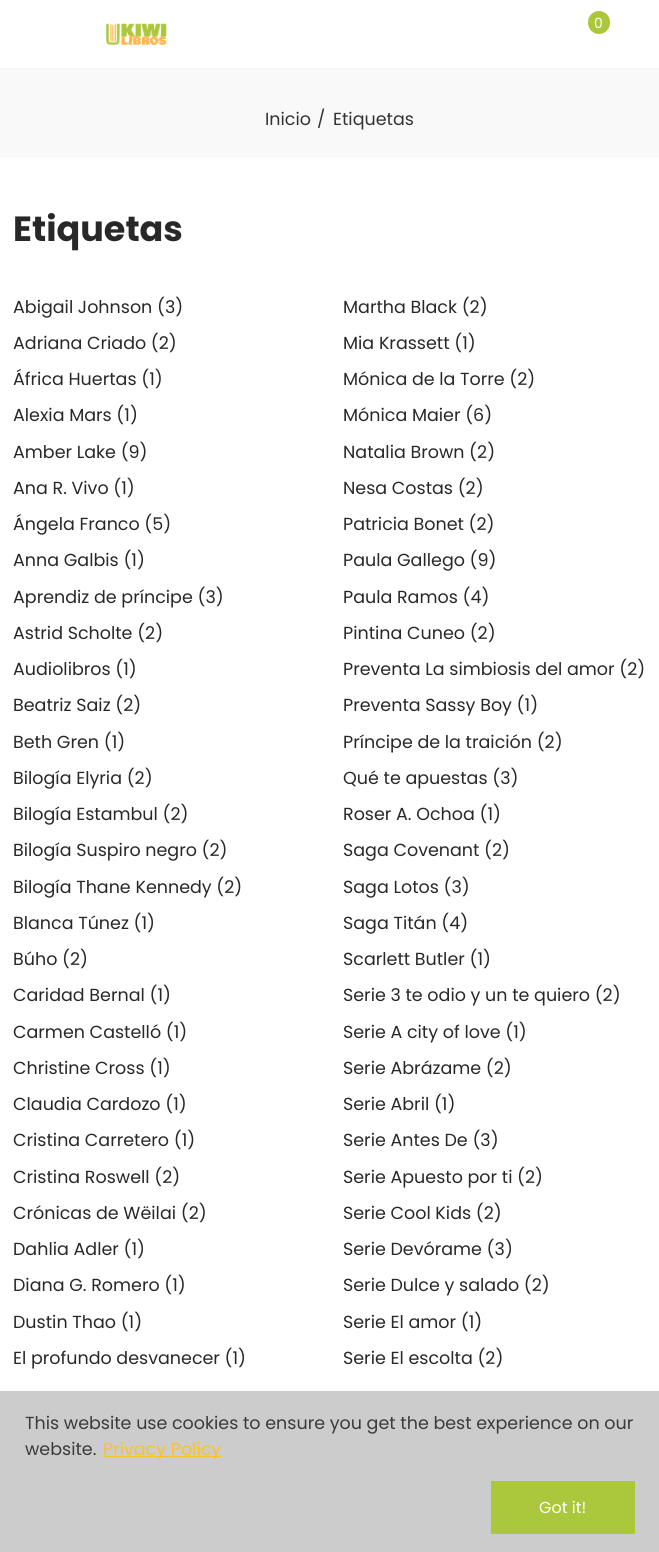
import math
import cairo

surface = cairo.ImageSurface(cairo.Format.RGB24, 659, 1552)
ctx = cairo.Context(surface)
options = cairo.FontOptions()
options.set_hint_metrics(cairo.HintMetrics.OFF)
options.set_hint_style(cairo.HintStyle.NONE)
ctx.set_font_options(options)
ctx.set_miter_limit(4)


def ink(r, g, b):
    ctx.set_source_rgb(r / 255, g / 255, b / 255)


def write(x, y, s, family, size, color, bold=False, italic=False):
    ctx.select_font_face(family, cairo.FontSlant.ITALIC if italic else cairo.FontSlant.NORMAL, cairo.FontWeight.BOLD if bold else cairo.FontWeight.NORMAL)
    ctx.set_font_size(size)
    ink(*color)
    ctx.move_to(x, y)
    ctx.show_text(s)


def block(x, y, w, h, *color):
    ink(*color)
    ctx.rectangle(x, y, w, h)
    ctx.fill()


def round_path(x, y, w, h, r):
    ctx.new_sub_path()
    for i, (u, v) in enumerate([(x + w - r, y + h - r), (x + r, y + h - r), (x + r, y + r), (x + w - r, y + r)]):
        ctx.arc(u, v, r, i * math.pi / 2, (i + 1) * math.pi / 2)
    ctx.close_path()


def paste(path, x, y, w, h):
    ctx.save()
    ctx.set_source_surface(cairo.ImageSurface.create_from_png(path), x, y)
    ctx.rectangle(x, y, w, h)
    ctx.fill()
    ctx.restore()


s1 = dict(family="Poppins", size=14, color=(255, 255, 255))
s2 = dict(family="Poppins", size=17.5, color=(51, 51, 51))
s3 = dict(family="Poppins", size=35, color=(40, 40, 40), bold=True)
s4 = dict(family="Poppins", size=17.5, color=(40, 40, 40))
s5 = dict(family="Poppins", size=17.5, color=(59, 59, 59))
s6 = dict(family="Poppins", size=17.5, color=(251, 194, 39))
s7 = dict(family="Poppins", size=16, color=(255, 255, 255))

ink(255, 255, 255)
ctx.paint()
block(0, 68, 659, 1, 245, 245, 245)
paste("pic1.png", 106, 23, 61, 22)
ink(171, 199, 59)
round_path(588, 11, 22, 23, 11)
ctx.fill()
write(594, 28, "0", **s1)
block(0, 69, 659, 89, 249, 249, 249)
write(265, 125, "Inicio", **s2)
write(317, 125, "/", **s2)
write(333, 125, "Etiquetas", **s2)
write(13, 241, "Etiquetas", **s3)
write(13, 313, "Abigail Johnson (3)", **s4)
write(343, 313, "Martha Black (2)", **s4)
write(13, 349, "Adriana Criado (2)", **s4)
write(343, 349, "Mia Krassett (1)", **s4)
write(13, 385, "África Huertas (1)", **s4)
write(343, 385, "Mónica de la Torre (2)", **s4)
write(13, 421, "Alexia Mars (1)", **s4)
write(343, 421, "Mónica Maier (6)", **s4)
write(13, 458, "Amber Lake (9)", **s4)
write(343, 458, "Natalia Brown (2)", **s4)
write(13, 494, "Ana R. Vivo (1)", **s4)
write(343, 494, "Nesa Costas (2)", **s4)
write(13, 530, "Ángela Franco (5)", **s4)
write(343, 530, "Patricia Bonet (2)", **s4)
write(13, 566, "Anna Galbis (1)", **s4)
write(343, 566, "Paula Gallego (9)", **s4)
write(13, 603, "Aprendiz de príncipe (3)", **s4)
write(343, 603, "Paula Ramos (4)", **s4)
write(13, 639, "Astrid Scholte (2)", **s4)
write(343, 639, "Pintina Cuneo (2)", **s4)
write(13, 675, "Audiolibros (1)", **s4)
write(343, 675, "Preventa La simbiosis del amor (2)", **s4)
write(13, 711, "Beatriz Saiz (2)", **s4)
write(343, 711, "Preventa Sassy Boy (1)", **s4)
write(13, 748, "Beth Gren (1)", **s4)
write(343, 748, "Príncipe de la traición (2)", **s4)
write(13, 784, "Bilogía Elyria (2)", **s4)
write(343, 784, "Qué te apuestas (3)", **s4)
write(13, 820, "Bilogía Estambul (2)", **s4)
write(343, 820, "Roser A. Ochoa (1)", **s4)
write(13, 856, "Bilogía Suspiro negro (2)", **s4)
write(343, 856, "Saga Covenant (2)", **s4)
write(13, 893, "Bilogía Thane Kennedy (2)", **s4)
write(343, 893, "Saga Lotos (3)", **s4)
write(13, 929, "Blanca Túnez (1)", **s4)
write(343, 929, "Saga Titán (4)", **s4)
write(13, 965, "Búho (2)", **s4)
write(343, 965, "Scarlett Butler (1)", **s4)
write(13, 1001, "Caridad Bernal (1)", **s4)
write(343, 1001, "Serie 3 te odio y un te quiero (2)", **s4)
write(13, 1038, "Carmen Castelló (1)", **s4)
write(343, 1038, "Serie A city of love (1)", **s4)
write(13, 1074, "Christine Cross (1)", **s4)
write(343, 1074, "Serie Abrázame (2)", **s4)
write(13, 1110, "Claudia Cardozo (1)", **s4)
write(343, 1110, "Serie Abril (1)", **s4)
write(13, 1146, "Cristina Carretero (1)", **s4)
write(343, 1146, "Serie Antes De (3)", **s4)
write(13, 1183, "Cristina Roswell (2)", **s4)
write(343, 1183, "Serie Apuesto por ti (2)", **s4)
write(13, 1219, "Crónicas de Wëilai (2)", **s4)
write(343, 1219, "Serie Cool Kids (2)", **s4)
write(13, 1255, "Dahlia Adler (1)", **s4)
write(343, 1255, "Serie Devórame (3)", **s4)
write(13, 1291, "Diana G. Romero (1)", **s4)
write(343, 1291, "Serie Dulce y salado (2)", **s4)
write(13, 1328, "Dustin Thao (1)", **s4)
write(343, 1328, "Serie El amor (1)", **s4)
write(13, 1364, "El profundo desvanecer (1)", **s4)
write(343, 1364, "Serie El escolta (2)", **s4)
block(0, 1391, 659, 161, 204, 204, 204)
write(25, 1429, "This website use cookies to ensure you get the best experience on our", **s5)
write(25, 1455, "website.", **s5)
block(103, 1456, 118, 1, 251, 194, 39)
write(103, 1455, "Privacy Policy", **s6)
block(491, 1481, 144, 53, 171, 199, 59)
write(539, 1513, "Got it!", **s7)
surface.write_to_png("screenshot.png")
